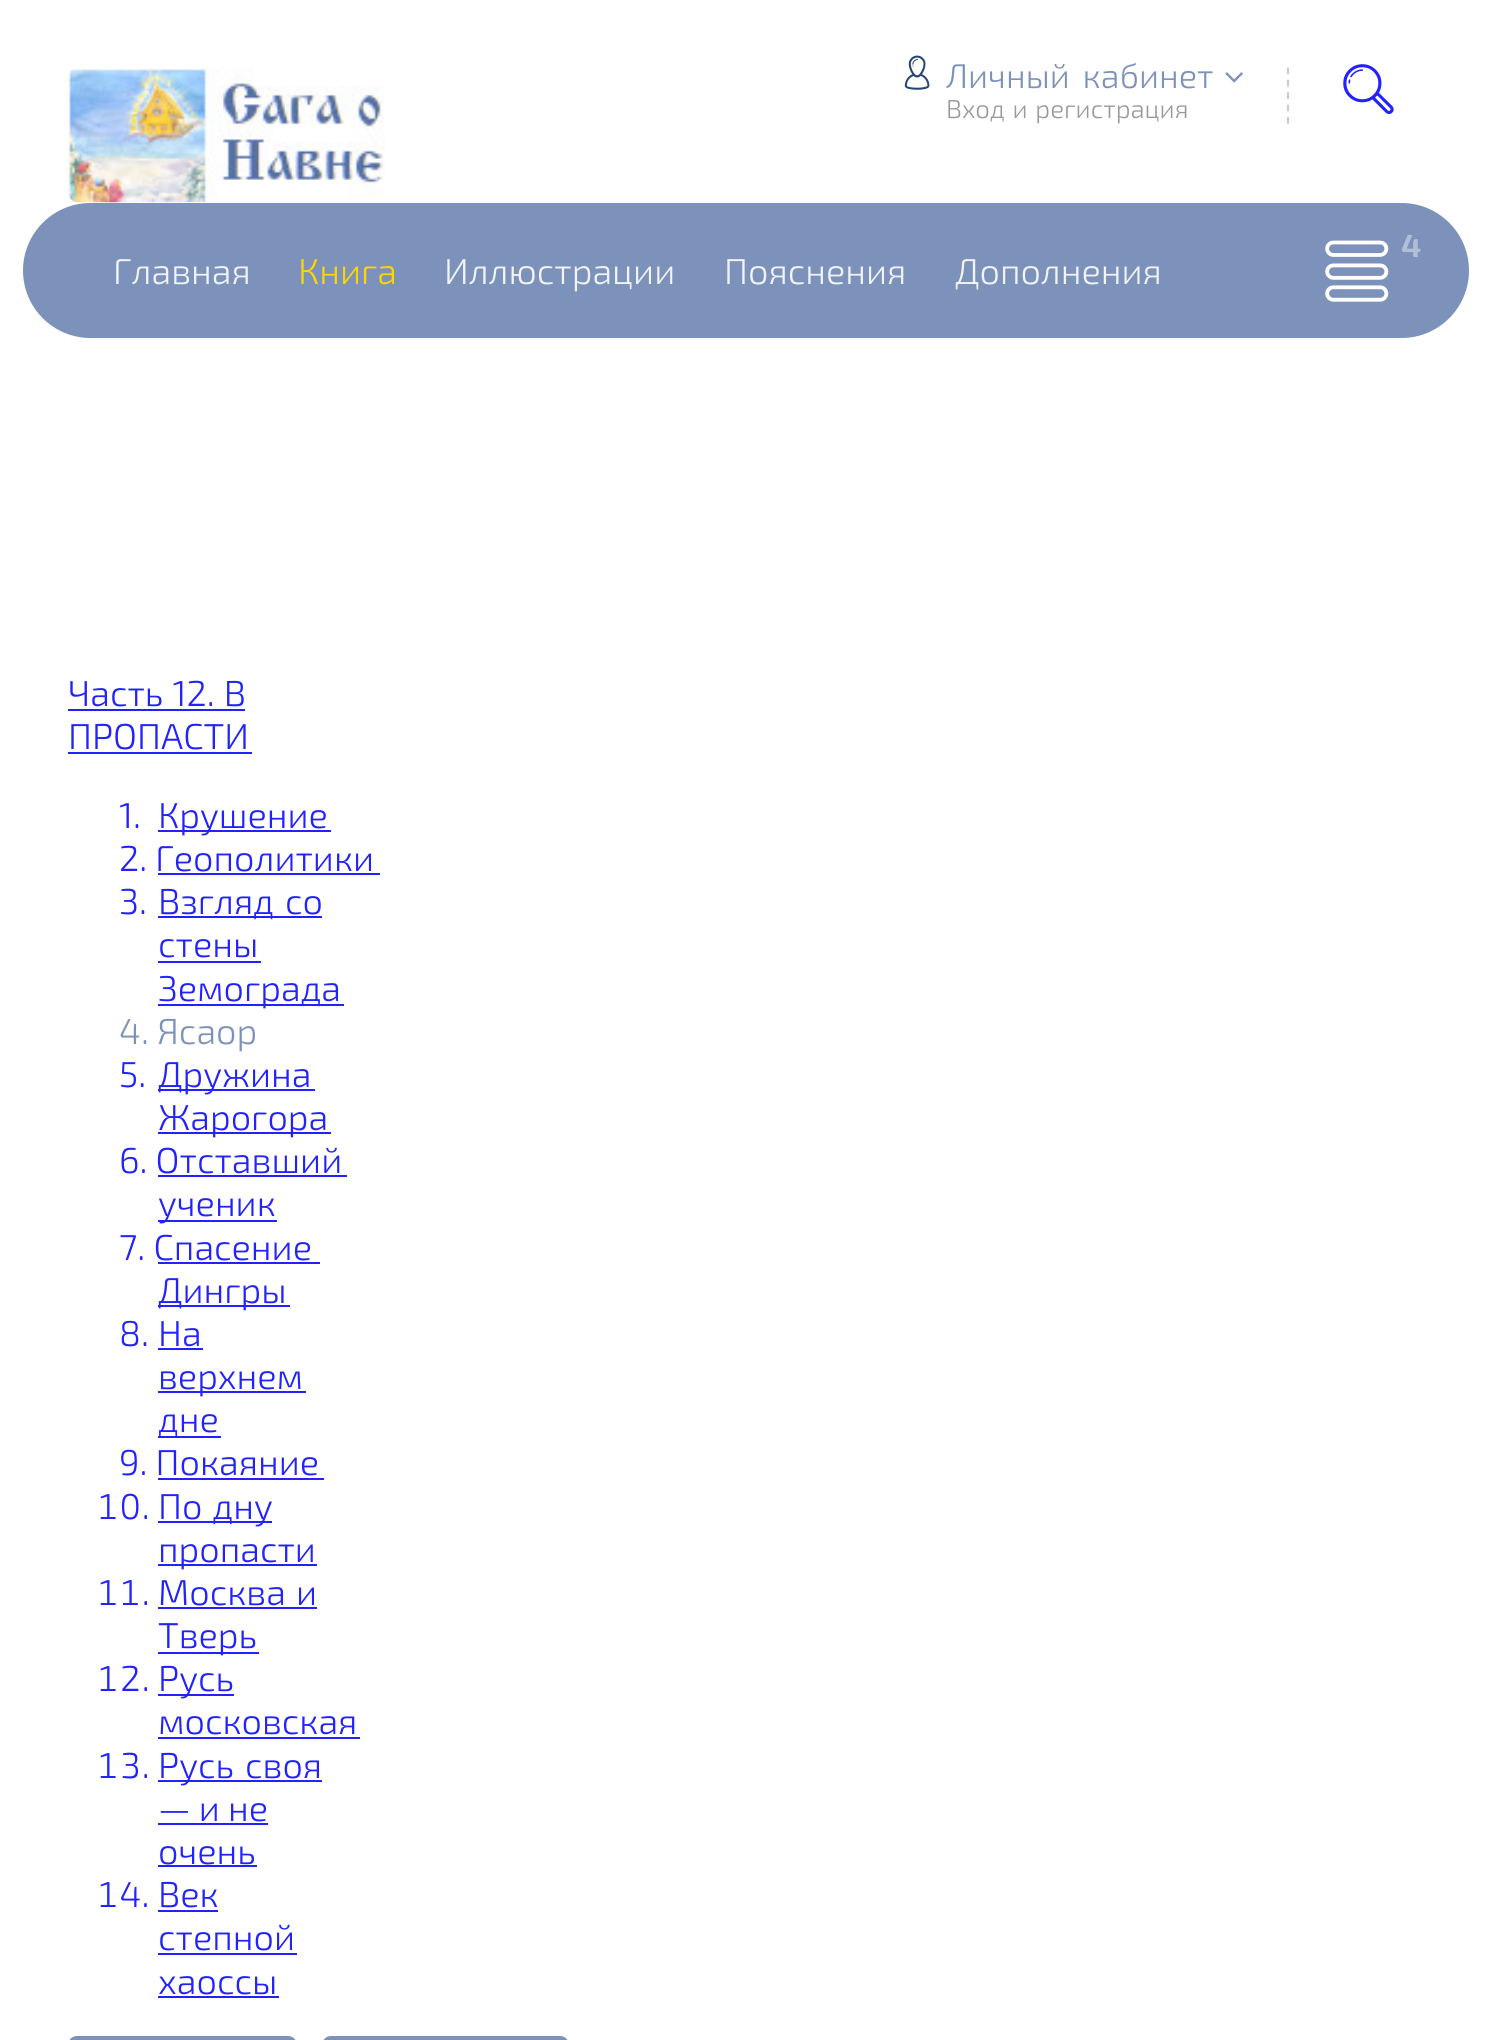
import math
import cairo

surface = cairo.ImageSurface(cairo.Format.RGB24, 1491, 2040)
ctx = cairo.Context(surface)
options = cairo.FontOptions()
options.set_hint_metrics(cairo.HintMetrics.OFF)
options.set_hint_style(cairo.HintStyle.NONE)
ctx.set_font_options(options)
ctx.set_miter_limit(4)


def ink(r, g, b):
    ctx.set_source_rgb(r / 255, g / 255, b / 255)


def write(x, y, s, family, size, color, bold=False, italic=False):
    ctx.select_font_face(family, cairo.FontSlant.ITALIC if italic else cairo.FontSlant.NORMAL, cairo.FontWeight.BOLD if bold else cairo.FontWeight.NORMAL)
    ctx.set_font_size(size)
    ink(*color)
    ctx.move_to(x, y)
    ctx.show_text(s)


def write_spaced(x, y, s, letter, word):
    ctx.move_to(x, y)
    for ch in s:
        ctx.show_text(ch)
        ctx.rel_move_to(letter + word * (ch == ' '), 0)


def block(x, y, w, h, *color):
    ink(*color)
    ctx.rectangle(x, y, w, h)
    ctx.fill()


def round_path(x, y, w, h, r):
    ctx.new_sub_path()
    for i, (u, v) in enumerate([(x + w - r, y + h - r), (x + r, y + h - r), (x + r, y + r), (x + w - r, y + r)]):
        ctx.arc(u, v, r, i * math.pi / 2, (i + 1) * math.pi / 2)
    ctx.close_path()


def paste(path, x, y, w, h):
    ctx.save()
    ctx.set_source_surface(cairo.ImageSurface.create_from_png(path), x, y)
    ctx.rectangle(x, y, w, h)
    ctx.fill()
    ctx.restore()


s1 = dict(family="Exo 2", size=32, color=(177, 190, 214), bold=True)
s2 = dict(family="Exo 2 Light", size=36, color=(242, 244, 248))
s3 = dict(family="Exo 2 Light", size=36, color=(255, 213, 0))
s4 = dict(family="Exo 2 Light", size=36, color=(34, 34, 255))
s5 = dict(family="Exo 2 Light", size=36, color=(125, 146, 186))
s6 = dict(family="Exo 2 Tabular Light", size=36, color=(34, 34, 255))

ink(255, 255, 255)
ctx.paint()
paste("pic1.png", 67, 67, 318, 136)
paste("pic2.png", 904, 55, 26, 35)
ctx.select_font_face("Exo 2 Light")
ctx.set_font_size(34.25)
ink(125, 146, 186)
write_spaced(946, 88, "Личный кабинет", 0, 5)
paste("pic3.png", 1225, 72, 18, 11)
ctx.new_path()
ctx.move_to(1288, 67.5)
ctx.line_to(1288, 124)
ink(204, 204, 204)
ctx.set_line_width(2.2)
ctx.set_dash([6.75, 5.62])
ctx.stroke()
ctx.set_font_size(25.75)
ink(153, 153, 153)
write_spaced(946, 118, "Вход и регистрация", 0, 2)
paste("pic4.png", 1343, 64, 51, 50)
ink(125, 146, 186)
round_path(23, 203, 1446, 135, 67.5)
ctx.fill()
paste("pic5.png", 1325, 240, 64, 62)
write(1401, 257, "4", **s1)
write(113, 284, "Главная", **s2)
write(298, 284, "Книга", **s3)
write(444, 284, "Иллюстрации", **s2)
write(724, 284, "Пояснения", **s2)
write(955, 284, "Дополнения", **s2)
ink(34, 34, 255)
write_spaced(68, 706, "Часть 12. В", 0, 1)
block(68, 709, 177, 2, 34, 34, 255)
write(68, 749, "ПРОПАСТИ", **s4)
block(68, 752, 184, 2, 34, 34, 255)
write(119, 828, "1.", **s4)
block(158, 830, 173, 2, 34, 34, 255)
write(158, 828, "Крушение", **s4)
write(119, 871, "2. Геополитики", **s4)
block(158, 873, 222, 2, 34, 34, 255)
write(119, 914, "3.", **s4)
block(158, 916, 164, 2, 34, 34, 255)
write_spaced(158, 914, "Взгляд со", 0, 3)
write(158, 957, "стены", **s4)
block(158, 961, 103, 2, 34, 34, 255)
block(158, 1004, 186, 2, 34, 34, 255)
write(158, 1001, "Земограда", **s4)
write(119, 1044, "4. Ясаор", **s5)
write(119, 1087, "5.", **s4)
block(158, 1089, 157, 2, 34, 34, 255)
write(158, 1087, "Дружина", **s4)
block(158, 1132, 173, 2, 34, 34, 255)
write(158, 1130, "Жарогора", **s4)
write(119, 1173, "6. Отставший", **s4)
block(158, 1220, 119, 2, 34, 34, 255)
write(158, 1216, "ученик", **s4)
block(158, 1175, 189, 2, 34, 34, 255)
write(119, 1260, "7. Спасение", **s4)
block(158, 1305, 132, 2, 34, 34, 255)
write(158, 1303, "Дингры", **s4)
block(158, 1262, 162, 2, 34, 34, 255)
write(119, 1346, "8.", **s4)
write(158, 1346, "На", **s4)
block(158, 1348, 45, 2, 34, 34, 255)
block(158, 1391, 148, 2, 34, 34, 255)
write(158, 1389, "верхнем", **s4)
block(158, 1436, 63, 2, 34, 34, 255)
write(158, 1432, "дне", **s4)
write(119, 1475, "9. Покаяние", **s4)
block(158, 1478, 166, 2, 34, 34, 255)
write(97, 1519, "10.", **s6)
block(158, 1521, 114, 2, 34, 34, 255)
ctx.select_font_face("Exo 2 Light")
write_spaced(158, 1519, "По дну", 0, 2)
block(158, 1564, 159, 2, 34, 34, 255)
write(158, 1562, "пропасти", **s4)
write(97, 1605, "11.", **s6)
ctx.select_font_face("Exo 2 Light")
write_spaced(158, 1605, "Москва и", 0, 2)
block(158, 1607, 159, 2, 34, 34, 255)
block(158, 1652, 101, 2, 34, 34, 255)
write(158, 1648, "Тверь", **s4)
write(97, 1691, "12.", **s6)
block(158, 1694, 76, 2, 34, 34, 255)
write(158, 1691, "Русь", **s4)
write(158, 1734, "московская", **s4)
block(158, 1737, 202, 2, 34, 34, 255)
write(97, 1778, "13.", **s6)
block(158, 1780, 164, 2, 34, 34, 255)
ctx.select_font_face("Exo 2 Light")
write_spaced(158, 1778, "Русь своя", 0, 3)
write(158, 1821, "— и не", **s4)
block(158, 1823, 110, 2, 34, 34, 255)
write(158, 1864, "очень", **s4)
block(158, 1865, 99, 2, 34, 34, 255)
write(97, 1907, "14.", **s6)
write(158, 1907, "Век", **s4)
block(158, 1910, 60, 2, 34, 34, 255)
write(158, 1950, "степной", **s4)
block(158, 1953, 139, 2, 34, 34, 255)
write(158, 1994, "хаоссы", **s4)
block(158, 1996, 121, 2, 34, 34, 255)
ink(125, 146, 186)
round_path(68, 2036, 229, 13, 9)
ctx.fill()
round_path(322, 2036, 247, 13, 9)
ctx.fill()
surface.write_to_png("screenshot.png")
